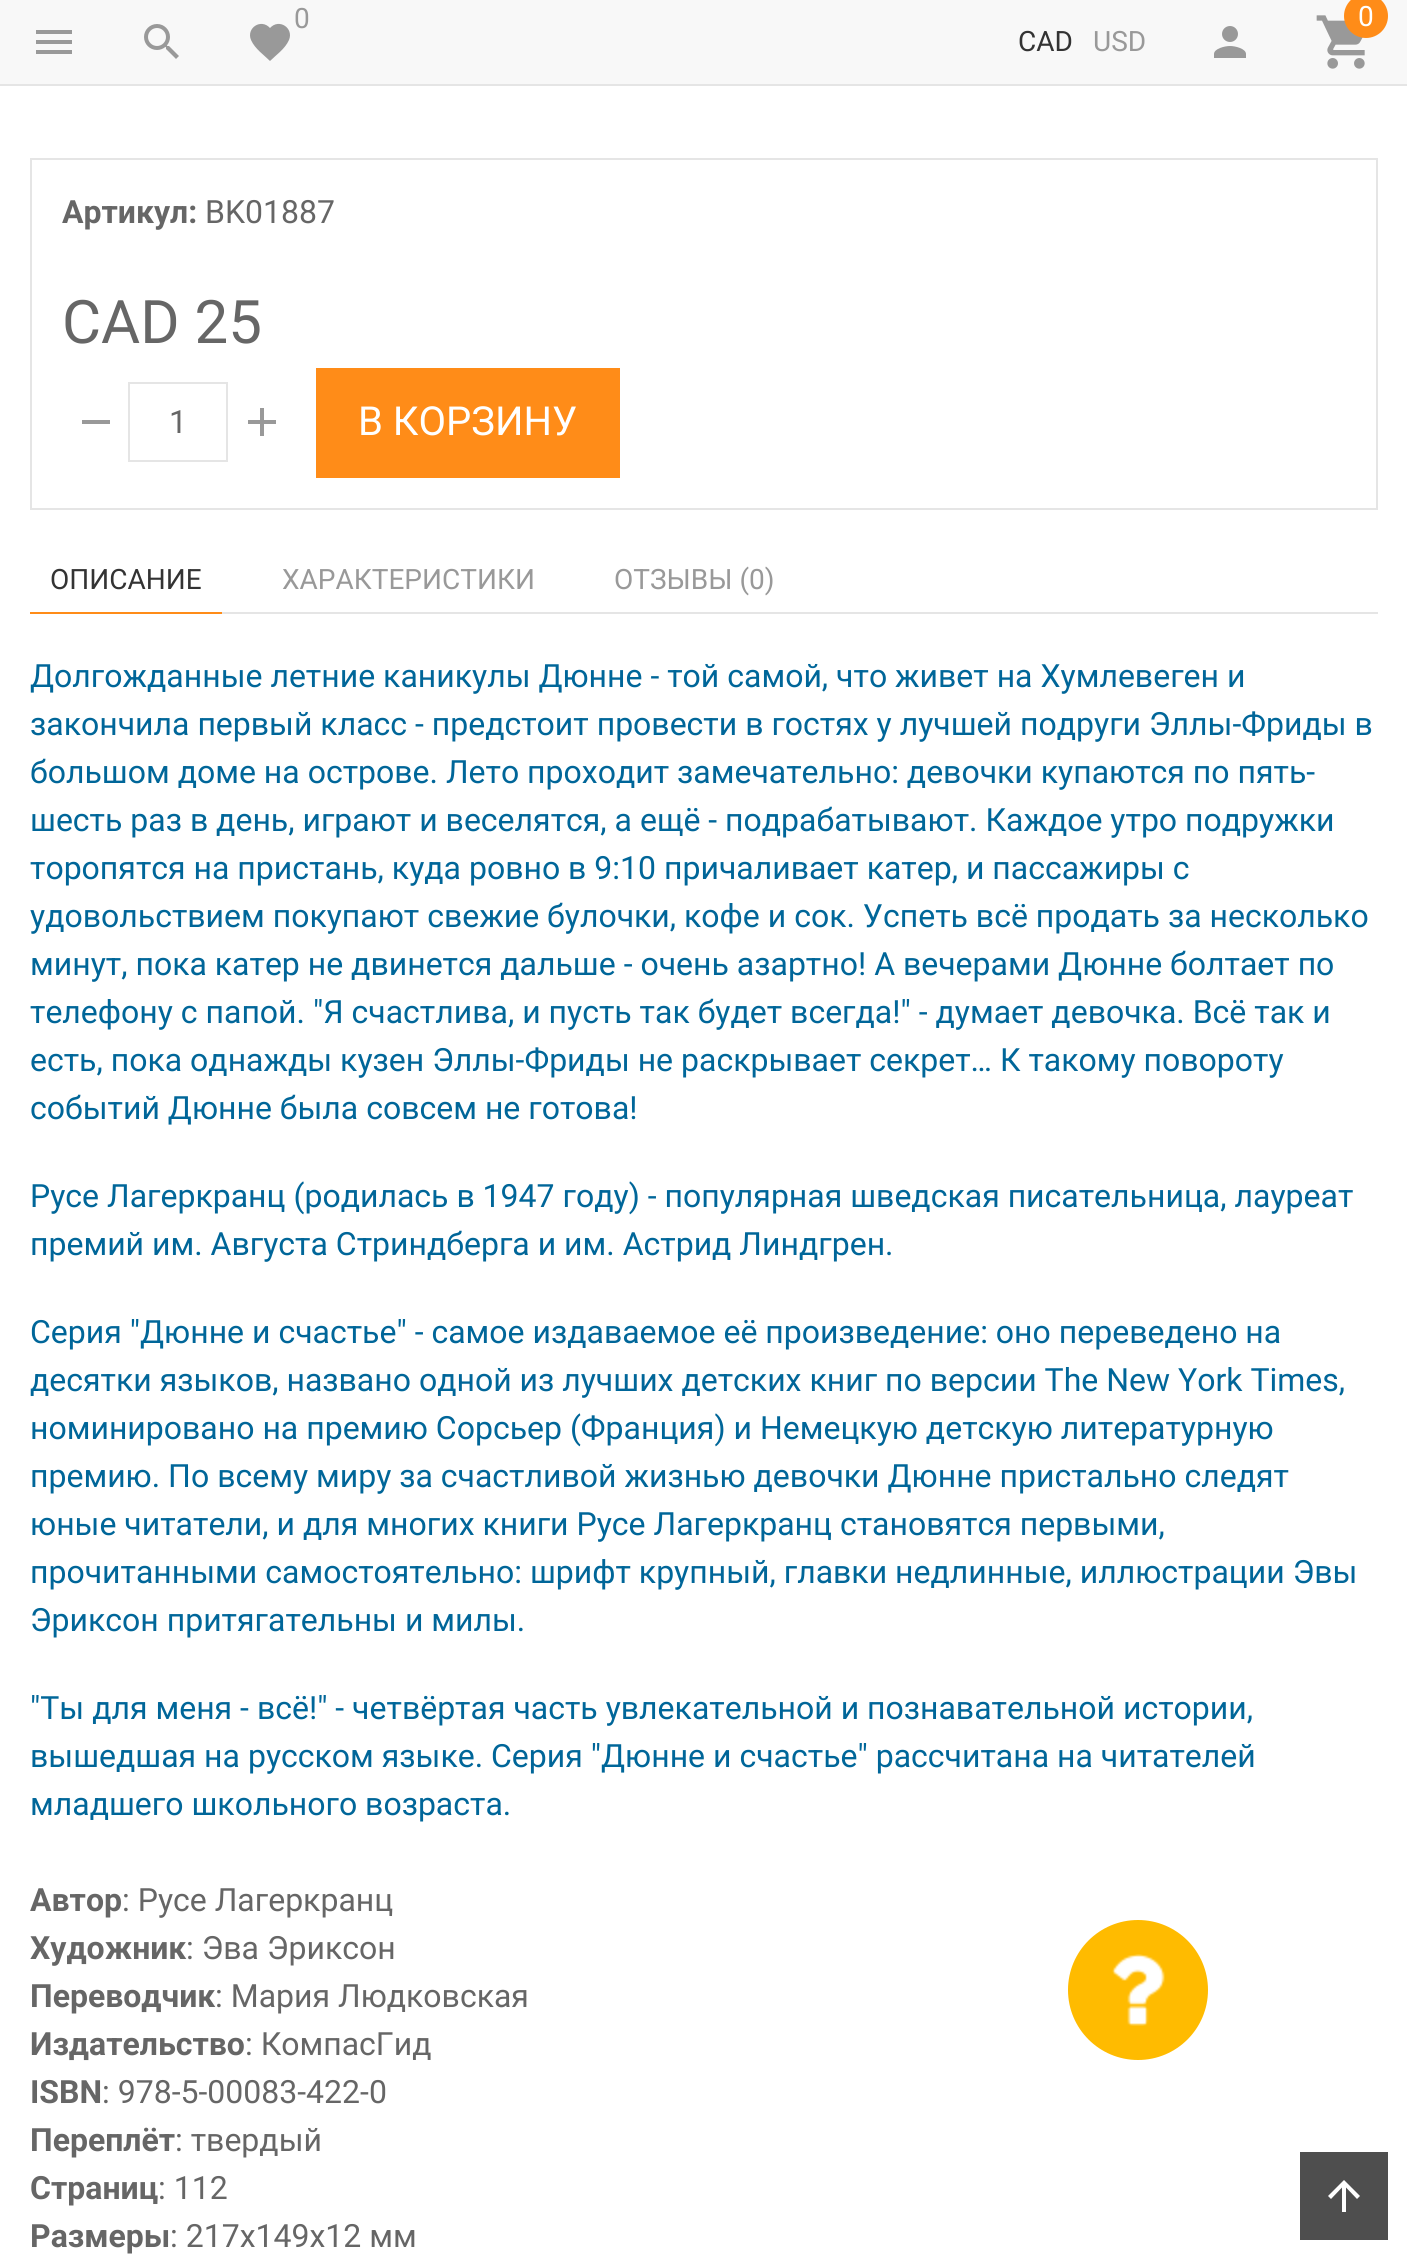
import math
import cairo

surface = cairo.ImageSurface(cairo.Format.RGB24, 1407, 2260)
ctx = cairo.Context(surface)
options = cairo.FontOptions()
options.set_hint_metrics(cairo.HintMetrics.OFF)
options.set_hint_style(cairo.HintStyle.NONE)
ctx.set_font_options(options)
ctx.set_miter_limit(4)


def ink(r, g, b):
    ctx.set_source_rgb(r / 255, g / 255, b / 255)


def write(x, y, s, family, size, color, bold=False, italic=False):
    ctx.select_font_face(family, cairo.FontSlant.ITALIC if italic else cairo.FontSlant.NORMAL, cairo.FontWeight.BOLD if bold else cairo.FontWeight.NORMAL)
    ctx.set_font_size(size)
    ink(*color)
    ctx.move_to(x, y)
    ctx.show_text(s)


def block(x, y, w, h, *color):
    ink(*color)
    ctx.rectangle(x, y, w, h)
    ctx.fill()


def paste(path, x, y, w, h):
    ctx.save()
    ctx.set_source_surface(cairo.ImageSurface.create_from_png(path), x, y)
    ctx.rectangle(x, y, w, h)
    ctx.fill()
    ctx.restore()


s1 = dict(family="Roboto", size=28, color=(153, 153, 153))
s2 = dict(family="Roboto", size=28, color=(255, 255, 255))
s3 = dict(family="Roboto", size=28, color=(51, 51, 51))
s4 = dict(family="Roboto", size=32, color=(102, 102, 102), bold=True)
s5 = dict(family="Roboto", size=32, color=(102, 102, 102))
s6 = dict(family="Roboto", size=60, color=(102, 102, 102))
s7 = dict(family="Roboto", size=40, color=(255, 255, 255))
s8 = dict(family="Roboto", size=32, color=(0, 102, 153))

ink(255, 255, 255)
ctx.paint()
block(0, 0, 1407, 84, 248, 248, 248)
block(0, 84, 1407, 2, 229, 229, 229)
write(294, 28, "0", **s1)
ctx.new_path()
ctx.move_to(270, 61)
ctx.curve_to(264, 55, 255, 49, 251, 40)
ctx.curve_to(246, 28, 261, 18, 270, 28)
ctx.curve_to(279, 18, 294, 28, 289, 40)
ctx.curve_to(285, 49, 276, 55, 270, 61)
ctx.close_path()
ctx.fill()
ctx.new_path()
ctx.move_to(36, 54)
ctx.line_to(72, 54)
ctx.line_to(72, 50)
ctx.line_to(36, 50)
ctx.close_path()
ctx.move_to(36, 44)
ctx.line_to(72, 44)
ctx.line_to(72, 40)
ctx.line_to(36, 40)
ctx.close_path()
ctx.move_to(36, 30)
ctx.line_to(36, 34)
ctx.line_to(72, 34)
ctx.line_to(72, 30)
ctx.close_path()
ctx.fill()
paste("pic1.png", 144, 24, 35, 35)
paste("pic2.png", 1316, 15, 49, 54)
ink(255, 140, 24)
ctx.arc(1366, 16, 22, 0, 2 * math.pi)
ctx.fill()
write(1358, 26, "0", **s2)
write(1018, 51, "CAD", **s3)
write(1093, 51, "USD", **s1)
paste("pic3.png", 1214, 26, 32, 32)
ctx.rectangle(31, 159, 1346, 350)
ink(229, 229, 229)
ctx.stroke()
write(62, 223, "Артикул:", **s4)
write(205, 223, "BK01887", **s5)
write(62, 343, "CAD 25", **s6)
block(82, 420, 28, 4, 153, 153, 153)
ctx.rectangle(129, 383, 98, 78)
ink(229, 229, 229)
ctx.stroke()
write(169, 433, "1", **s5)
paste("pic4.png", 248, 408, 28, 28)
block(316, 368, 304, 110, 255, 140, 24)
write(358, 435, "В КОРЗИНУ", **s7)
block(30, 612, 192, 2, 255, 140, 24)
write(50, 589, "ОПИСАНИЕ", **s3)
write(282, 589, "ХАРАКТЕРИСТИКИ", **s1)
write(614, 589, "ОТЗЫВЫ (0)", **s1)
block(222, 612, 1156, 2, 229, 229, 229)
write(30, 687, "Долгожданные летние каникулы Дюнне - той самой, что живет на Хумлевеген и", **s8)
write(30, 735, "закончила первый класс - предстоит провести в гостях у лучшей подруги Эллы-Фриды в", **s8)
write(30, 783, "большом доме на острове. Лето проходит замечательно: девочки купаются по пять-", **s8)
write(30, 831, "шесть раз в день, играют и веселятся, а ещё - подрабатывают. Каждое утро подружки", **s8)
write(30, 879, "торопятся на пристань, куда ровно в 9:10 причаливает катер, и пассажиры с", **s8)
write(30, 927, "удовольствием покупают свежие булочки, кофе и сок. Успеть всё продать за несколько", **s8)
write(30, 975, "минут, пока катер не двинется дальше - очень азартно! А вечерами Дюнне болтает по", **s8)
write(30, 1023, "телефону с папой. \"Я счастлива, и пусть так будет всегда!\" - думает девочка. Всё так и", **s8)
write(30, 1071, "есть, пока однажды кузен Эллы-Фриды не раскрывает секрет… К такому повороту", **s8)
write(30, 1119, "событий Дюнне была совсем не готова!", **s8)
write(30, 1207, "Русе Лагеркранц (родилась в 1947 году) - популярная шведская писательница, лауреат", **s8)
write(30, 1255, "премий им. Августа Стриндберга и им. Астрид Линдгрен.", **s8)
write(30, 1343, "Серия \"Дюнне и счастье\" - самое издаваемое её произведение: оно переведено на", **s8)
write(30, 1391, "десятки языков, названо одной из лучших детских книг по версии The New York Times,", **s8)
write(30, 1439, "номинировано на премию Сорсьер (Франция) и Немецкую детскую литературную", **s8)
write(30, 1487, "премию. По всему миру за счастливой жизнью девочки Дюнне пристально следят", **s8)
write(30, 1535, "юные читатели, и для многих книги Русе Лагеркранц становятся первыми,", **s8)
write(30, 1583, "прочитанными самостоятельно: шрифт крупный, главки недлинные, иллюстрации Эвы", **s8)
write(30, 1631, "Эриксон притягательны и милы.", **s8)
write(30, 1719, "\"Ты для меня - всё!\" - четвёртая часть увлекательной и познавательной истории,", **s8)
write(30, 1767, "вышедшая на русском языке. Серия \"Дюнне и счастье\" рассчитана на читателей", **s8)
write(30, 1815, "младшего школьного возраста.", **s8)
write(30, 1911, "Автор", **s4)
write(122, 1911, ": Русе Лагеркранц", **s5)
write(30, 1959, "Художник", **s4)
write(186, 1959, ": Эва Эриксон", **s5)
write(30, 2007, "Переводчик", **s4)
write(215, 2007, ": Мария Людковская", **s5)
write(30, 2055, "Издательство", **s4)
write(245, 2055, ": КомпасГид", **s5)
write(30, 2103, "ISBN", **s4)
write(102, 2103, ": 978-5-00083-422-0", **s5)
write(30, 2151, "Переплёт", **s4)
write(175, 2151, ": твердый", **s5)
write(30, 2199, "Страниц", **s4)
write(158, 2199, ": 112", **s5)
write(30, 2247, "Размеры", **s4)
write(170, 2247, ": 217х149х12 мм", **s5)
ink(255, 187, 0)
ctx.new_path()
ctx.arc(1138, 1990, 70, 0, 2 * math.pi)
ctx.fill()
paste("pic5.png", 1112, 1954, 53, 72)
block(1300, 2152, 88, 88, 78, 78, 78)
ink(255, 255, 255)
ctx.new_path()
ctx.move_to(1328, 2196)
ctx.line_to(1331, 2199)
ctx.line_to(1342, 2187.5)
ctx.line_to(1342, 2212)
ctx.line_to(1346, 2212)
ctx.line_to(1346, 2187.5)
ctx.line_to(1357, 2199)
ctx.line_to(1360, 2196)
ctx.line_to(1344, 2180)
ctx.close_path()
ctx.fill()
surface.write_to_png("screenshot.png")
